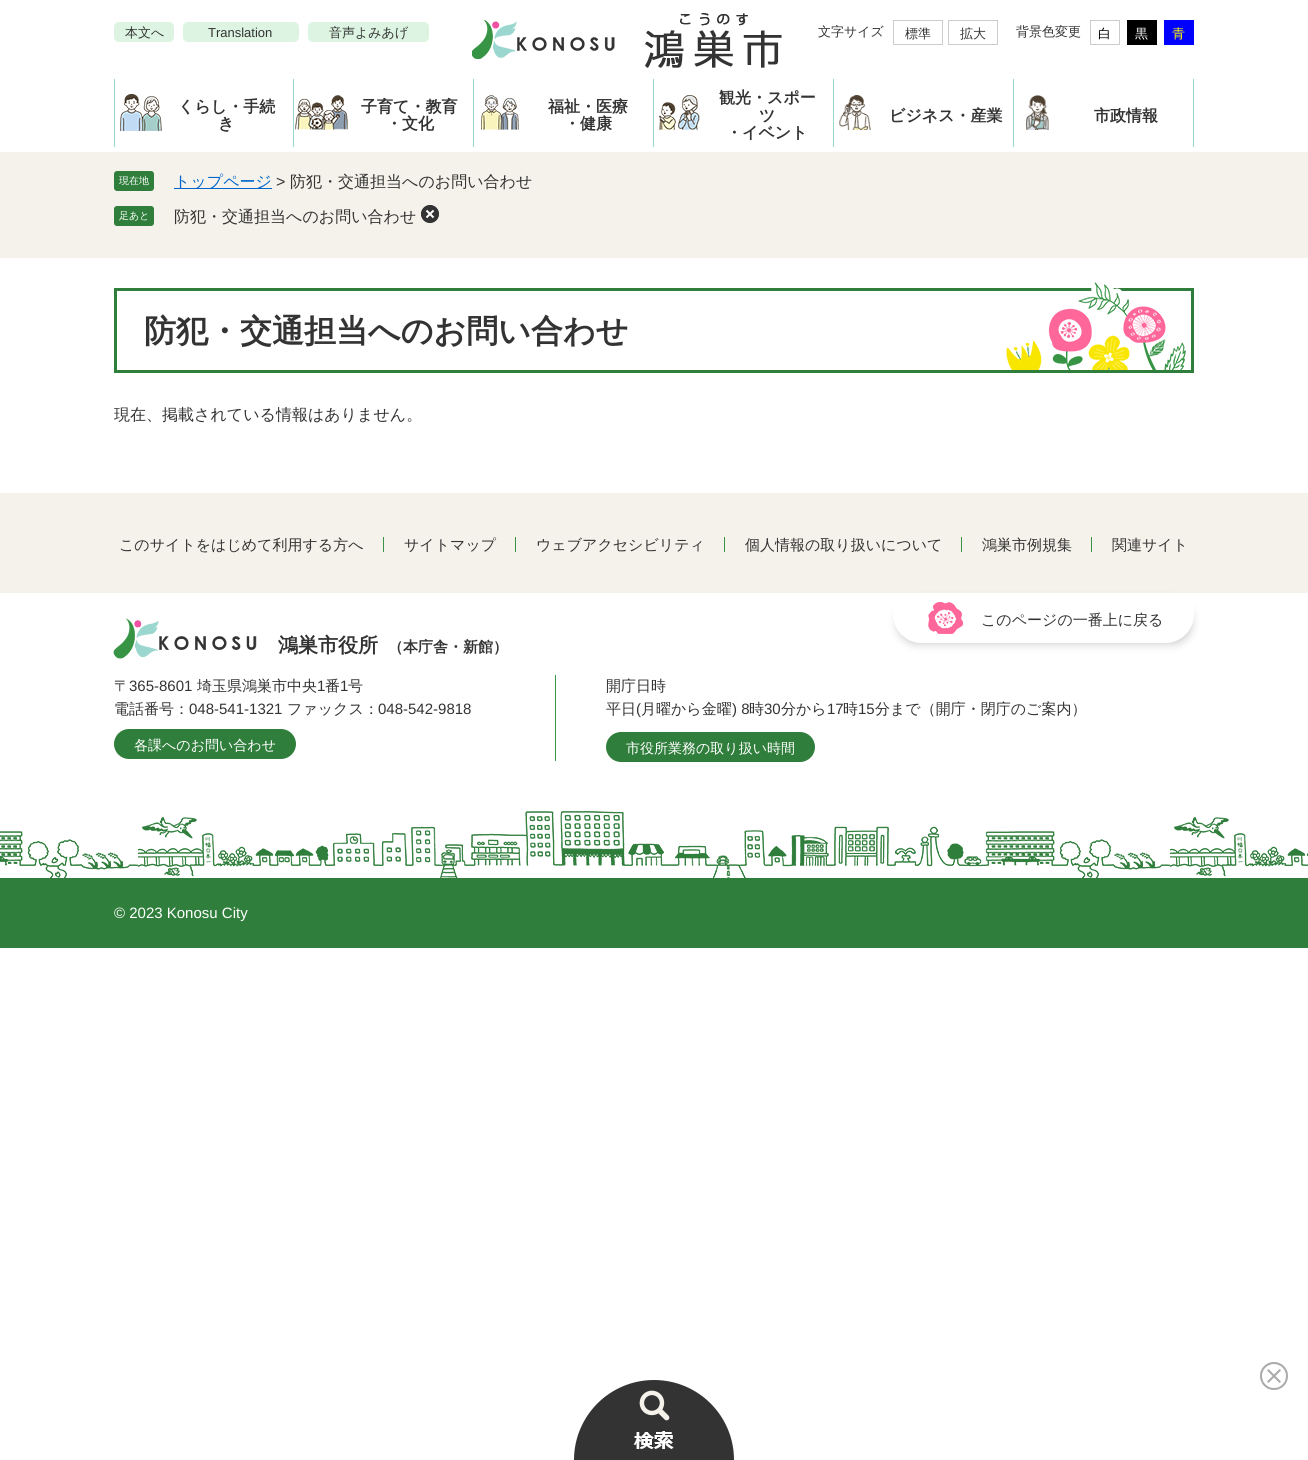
import math
import cairo

surface = cairo.ImageSurface(cairo.Format.RGB24, 1308, 1460)
ctx = cairo.Context(surface)
options = cairo.FontOptions()
options.set_hint_metrics(cairo.HintMetrics.OFF)
options.set_hint_style(cairo.HintStyle.NONE)
ctx.set_font_options(options)
ctx.set_miter_limit(4)


def ink(r, g, b):
    ctx.set_source_rgb(r / 255, g / 255, b / 255)


def write(x, y, s, family, size, color, bold=False, italic=False):
    ctx.select_font_face(family, cairo.FontSlant.ITALIC if italic else cairo.FontSlant.NORMAL, cairo.FontWeight.BOLD if bold else cairo.FontWeight.NORMAL)
    ctx.set_font_size(size)
    ink(*color)
    ctx.move_to(x, y)
    ctx.show_text(s)


def block(x, y, w, h, *color):
    ink(*color)
    ctx.rectangle(x, y, w, h)
    ctx.fill()


def round_path(x, y, w, h, r):
    ctx.new_sub_path()
    for i, (u, v) in enumerate([(x + w - r, y + h - r), (x + r, y + h - r), (x + r, y + r), (x + w - r, y + r)]):
        ctx.arc(u, v, r, i * math.pi / 2, (i + 1) * math.pi / 2)
    ctx.close_path()


def blur_box(x, y, w, h, r, blur, alpha):
    ctx.push_group_with_content(cairo.Content.ALPHA)
    ctx.set_operator(cairo.Operator.SOURCE)
    for i in range(15, -16, -2):
        e = blur * i / 6
        if min(w, h) + 2 * e > 0:
            ctx.set_source_rgba(0, 0, 0, alpha * math.erfc((i - 1) / 8.5) / 2)
            round_path(x - e, y - e, w + 2 * e, h + 2 * e, max(0, min(r + e + blur * .6, min(w, h) / 2 + e)))
            ctx.fill()
    ctx.mask(ctx.pop_group())


def paste(path, x, y, w, h):
    ctx.save()
    ctx.set_source_surface(cairo.ImageSurface.create_from_png(path), x, y)
    ctx.rectangle(x, y, w, h)
    ctx.fill()
    ctx.restore()


s1 = dict(family="WenQuanYi Zen Hei Medium", size=13, color=(51, 51, 51))
s2 = dict(family="Liberation Sans", size=13, color=(51, 51, 51))
s3 = dict(family="WenQuanYi Zen Hei Medium", size=13, color=(0, 0, 0))
s4 = dict(family="WenQuanYi Zen Hei Medium", size=13, color=(255, 255, 255))
s5 = dict(family="WenQuanYi Zen Hei Medium", size=13, color=(255, 255, 0))
s6 = dict(family="WenQuanYi Zen Hei", size=16, color=(51, 51, 51), bold=True)
s7 = dict(family="WenQuanYi Zen Hei Medium", size=10, color=(255, 255, 255))
s8 = dict(family="WenQuanYi Zen Hei Medium", size=16, color=(0, 102, 204))
s9 = dict(family="Liberation Sans", size=16, color=(51, 51, 51))
s10 = dict(family="WenQuanYi Zen Hei Medium", size=16, color=(51, 51, 51))
s11 = dict(family="WenQuanYi Zen Hei", size=32, color=(51, 51, 51), bold=True)
s12 = dict(family="WenQuanYi Zen Hei Medium", size=15, color=(51, 51, 51))
s13 = dict(family="WenQuanYi Zen Hei", size=20, color=(51, 51, 51), bold=True)
s14 = dict(family="WenQuanYi Zen Hei", size=15, color=(51, 51, 51), bold=True)
s15 = dict(family="Liberation Sans", size=15, color=(51, 51, 51))
s16 = dict(family="WenQuanYi Zen Hei Medium", size=14, color=(255, 255, 255))
s17 = dict(family="Liberation Sans", size=15, color=(255, 255, 255))

ink(255, 255, 255)
ctx.paint()
ink(220, 244, 225)
round_path(114, 22, 60, 20, 5)
ctx.fill()
write(125, 37, "本文へ", **s1)
ink(220, 244, 225)
round_path(183, 22, 116, 20, 5)
ctx.fill()
write(208, 37, "Translation", **s2)
ink(220, 244, 225)
round_path(308, 22, 121, 20, 5)
ctx.fill()
write(329, 37, "音声よみあげ", **s1)
paste("pic1.png", 472, 13, 310, 55)
write(818, 36, "文字サイズ", **s1)
ctx.rectangle(893.5, 20.5, 49, 24)
ink(204, 204, 204)
ctx.set_line_width(1)
ctx.stroke()
write(905, 38, "標準", **s1)
ctx.rectangle(948.5, 20.5, 49, 24)
ink(204, 204, 204)
ctx.stroke()
write(960, 38, "拡大", **s1)
write(1016, 36, "背景色変更", **s1)
ctx.rectangle(1090.5, 20.5, 29, 24)
ink(204, 204, 204)
ctx.stroke()
write(1098, 38, "白", **s3)
block(1127, 20, 30, 25, 0, 0, 0)
write(1135, 38, "黒", **s4)
block(1164, 20, 30, 25, 0, 0, 255)
write(1172, 38, "青", **s5)
block(293, 79, 1, 68, 155, 215, 207)
block(114, 79, 1, 68, 155, 215, 207)
paste("pic2.png", 120, 94, 42, 37)
write(178, 112, "くらし・手続", **s6)
write(218, 129, "き", **s6)
block(473, 79, 1, 68, 155, 215, 207)
paste("pic3.png", 295, 95, 53, 35)
write(361, 112, "子育て・教育", **s6)
write(386, 129, "・文化", **s6)
block(653, 79, 1, 68, 155, 215, 207)
paste("pic4.png", 481, 95, 38, 35)
write(548, 112, "福祉・医療", **s6)
write(564, 129, "・健康", **s6)
block(833, 79, 1, 68, 155, 215, 207)
paste("pic5.png", 659, 95, 41, 35)
write(719, 103, "観光・スポー", **s6)
write(759, 121, "ツ", **s6)
write(726, 138, "・イベント", **s6)
block(1013, 79, 1, 68, 155, 215, 207)
paste("pic6.png", 839, 95, 32, 35)
write(889, 121, "ビジネス・産業", **s6)
block(1193, 79, 1, 68, 155, 215, 207)
paste("pic7.png", 1026, 95, 23, 35)
write(1094, 121, "市政情報", **s6)
paste("pic8.png", 574, 1380, 160, 80)
block(0, 152, 1308, 106, 245, 242, 235)
ink(47, 126, 59)
round_path(114, 171, 40, 20, 3)
ctx.fill()
write(119, 184, "現在地", **s7)
block(174, 188, 98, 1, 0, 102, 204)
write(174, 187, "トップページ", **s8)
write(276, 187, ">", **s9)
write(290, 187, "防犯・交通担当へのお問い合わせ", **s10)
ink(47, 126, 59)
round_path(114, 206, 40, 20, 3)
ctx.fill()
write(119, 219, "足あと", **s7)
write(174, 222, "防犯・交通担当へのお問い合わせ", **s10)
ctx.new_path()
ctx.arc(430, 214, 9, 0, 2 * math.pi)
ctx.fill()
paste("pic9.png", 421, 205, 18, 18)
ctx.rectangle(115.5, 289.5, 1077, 82)
ink(47, 126, 59)
ctx.set_line_width(3)
ctx.stroke()
write(144, 342, "防犯・交通担当へのお問い合わせ", **s11)
paste("pic10.png", 1006, 282, 180, 88)
write(114, 420, "現在、掲載されている情報はありません。", **s10)
block(0, 493, 1308, 100, 245, 242, 235)
block(383, 537, 1, 15, 55, 148, 69)
write(119, 550, "このサイトをはじめて利用する方へ", **s12)
block(515, 537, 1, 15, 55, 148, 69)
write(404, 550, "サイトマップ", **s12)
block(724, 537, 1, 15, 55, 148, 69)
write(536, 550, "ウェブアクセシビリティ", **s12)
block(961, 537, 1, 15, 55, 148, 69)
write(745, 550, "個人情報の取り扱いについて", **s12)
block(1091, 537, 1, 15, 55, 148, 69)
write(982, 550, "鴻巣市例規集", **s12)
write(1112, 550, "関連サイト", **s12)
paste("pic11.png", 0, 811, 1308, 67)
ctx.save()
ctx.set_fill_rule(cairo.FillRule.EVEN_ODD)
ctx.new_path()
ctx.move_to(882, 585)
ctx.line_to(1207, 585)
ctx.line_to(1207, 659)
ctx.line_to(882, 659)
ctx.close_path()
ctx.move_to(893, 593)
ctx.line_to(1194, 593)
ctx.line_to(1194, 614)
ctx.curve_to(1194, 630, 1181, 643, 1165, 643)
ctx.line_to(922, 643)
ctx.curve_to(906, 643, 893, 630, 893, 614)
ctx.close_path()
ctx.clip()
ink(0, 0, 0)
blur_box(897, 600, 295, 44, 26, 4.5, 0.2)
ctx.restore()
paste("pic12.png", 928, 602, 35, 32)
write(981, 625, "このページの一番上に戻る", **s12)
paste("pic13.png", 113, 618, 144, 41)
write(278, 652, "鴻巣市役所", **s13)
write(388, 652, "（本庁舎・新館）", **s14)
block(555, 675, 1, 86, 55, 148, 69)
write(114, 691, "〒", **s12)
write(129, 691, "365-8601", **s15)
write(197, 691, "埼玉県鴻巣市中央", **s12)
write(317, 691, "1", **s15)
write(325, 691, "番", **s12)
write(340, 691, "1", **s15)
write(348, 691, "号", **s12)
write(114, 714, "電話番号：", **s12)
write(189, 714, "048-541-1321", **s15)
write(287, 714, "ファックス：", **s12)
write(378, 714, "048-542-9818", **s15)
ink(47, 126, 59)
round_path(114, 729, 182, 30, 15)
ctx.fill()
write(134, 750, "各課へのお問い合わせ", **s16)
write(606, 691, "開庁日時", **s12)
write(606, 714, "平日", **s12)
write(636, 714, "(", **s15)
write(641, 714, "月曜から金曜", **s12)
write(732, 714, ") 8", **s15)
write(749, 714, "時", **s12)
write(764, 714, "30", **s15)
write(781, 714, "分から", **s12)
write(827, 714, "17", **s15)
write(843, 714, "時", **s12)
write(858, 714, "15", **s15)
write(875, 714, "分まで（開庁・閉庁のご案内）", **s12)
ink(47, 126, 59)
round_path(606, 732, 209, 30, 15)
ctx.fill()
write(626, 753, "市役所業務の取り扱い時間", **s16)
block(0, 878, 1308, 70, 47, 126, 59)
write(114, 918, "© 2023 Konosu City", **s17)
paste("pic14.png", 1260, 1362, 28, 28)
surface.write_to_png("screenshot.png")
